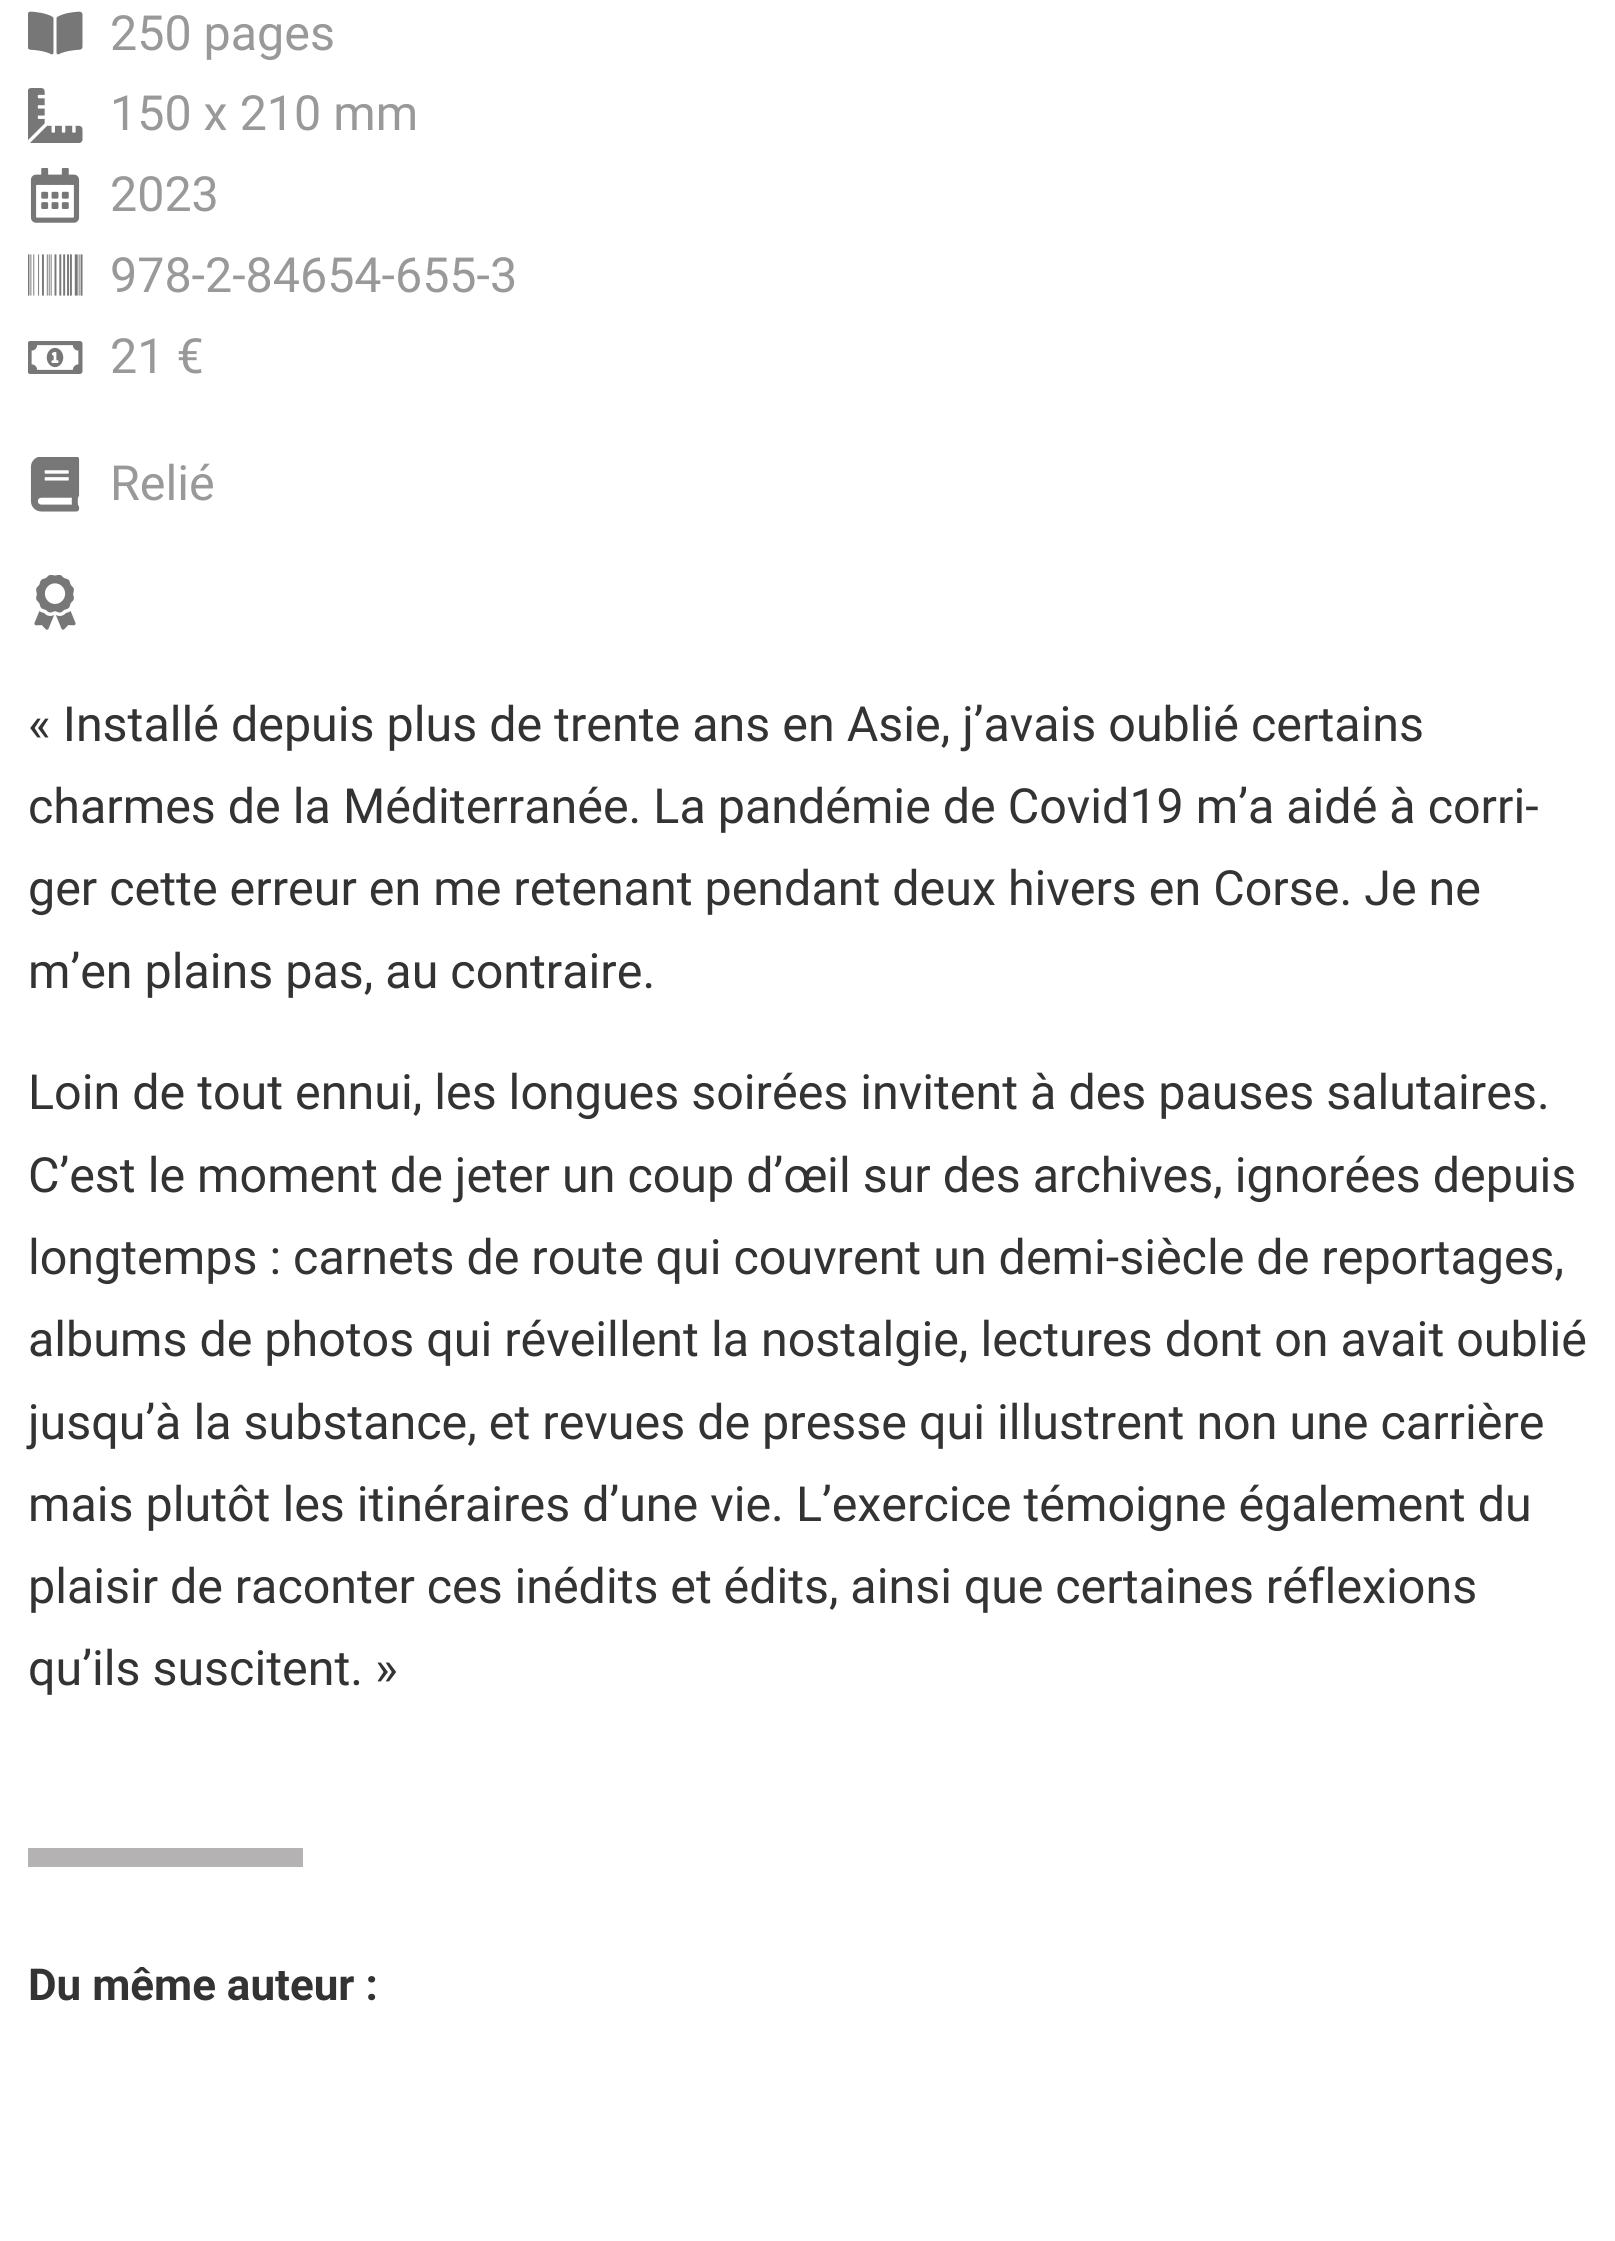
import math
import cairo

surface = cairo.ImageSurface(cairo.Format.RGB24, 1615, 2241)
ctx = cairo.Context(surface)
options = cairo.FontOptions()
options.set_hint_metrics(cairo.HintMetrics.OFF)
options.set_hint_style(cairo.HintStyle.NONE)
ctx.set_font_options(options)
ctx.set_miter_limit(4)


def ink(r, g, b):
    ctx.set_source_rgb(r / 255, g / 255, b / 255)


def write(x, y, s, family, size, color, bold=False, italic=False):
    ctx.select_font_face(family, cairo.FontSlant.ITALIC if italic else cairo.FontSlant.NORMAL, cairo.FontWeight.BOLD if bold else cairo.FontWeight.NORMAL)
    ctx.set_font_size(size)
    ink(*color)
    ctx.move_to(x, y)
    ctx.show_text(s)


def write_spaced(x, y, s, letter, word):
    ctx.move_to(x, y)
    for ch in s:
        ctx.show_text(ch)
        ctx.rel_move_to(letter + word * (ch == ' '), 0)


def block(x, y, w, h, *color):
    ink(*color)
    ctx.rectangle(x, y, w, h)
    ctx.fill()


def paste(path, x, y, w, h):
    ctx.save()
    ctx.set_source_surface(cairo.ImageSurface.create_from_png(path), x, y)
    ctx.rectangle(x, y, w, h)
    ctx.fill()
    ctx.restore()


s1 = dict(family="Roboto", size=48.4, color=(153, 153, 153))
s2 = dict(family="Roboto", size=48.4, color=(51, 51, 51))
s3 = dict(family="Roboto", size=44, color=(51, 51, 51), bold=True)

ink(255, 255, 255)
ctx.paint()
paste("pic1.png", 28, 11, 55, 44)
write(110, 50, "250 pages", **s1)
paste("pic2.png", 28, 88, 55, 55)
write(110, 130, "150 x 210 mm", **s1)
paste("pic3.png", 30, 168, 50, 55)
write(110, 211, "2023", **s1)
paste("pic4.png", 28, 254, 55, 42)
write(110, 292, "978-2-84654-655-3", **s1)
paste("pic5.png", 28, 341, 55, 33)
write(110, 373, "21 €", **s1)
paste("pic6.png", 30, 457, 50, 55)
write(110, 500, "Relié", **s1)
paste("pic7.png", 34, 575, 42, 55)
write(28, 741, "« Installé depuis plus de trente ans en Asie, j’avais oublié certains", **s2)
write(28, 823, "charmes de la Méditerranée. La pandémie de Covid19 m’a aidé à corri-", **s2)
write(28, 905, "ger cette erreur en me retenant pendant deux hivers en Corse. Je ne", **s2)
write(28, 988, "m’en plains pas, au contraire.", **s2)
write(28, 1109, "Loin de tout ennui, les longues soirées invitent à des pauses salutaires.", **s2)
write(28, 1192, "C’est le moment de jeter un coup d’œil sur des archives, ignorées depuis", **s2)
write(28, 1274, "longtemps : carnets de route qui couvrent un demi-siècle de reportages,", **s2)
write(28, 1356, "albums de photos qui réveillent la nostalgie, lectures dont on avait oublié", **s2)
write(28, 1439, "jusqu’à la substance, et revues de presse qui illustrent non une carrière", **s2)
write(28, 1521, "mais plutôt les itinéraires d’une vie. L’exercice témoigne également du", **s2)
write_spaced(28, 1603, "plaisir de raconter ces inédits et édits, ainsi que certaines réflexions", 0, -0.25)
write(28, 1685, "qu’ils suscitent. »", **s2)
block(28, 1848, 275, 19, 180, 178, 178)
write(28, 2000, "Du même auteur :", **s3)
surface.write_to_png("screenshot.png")
